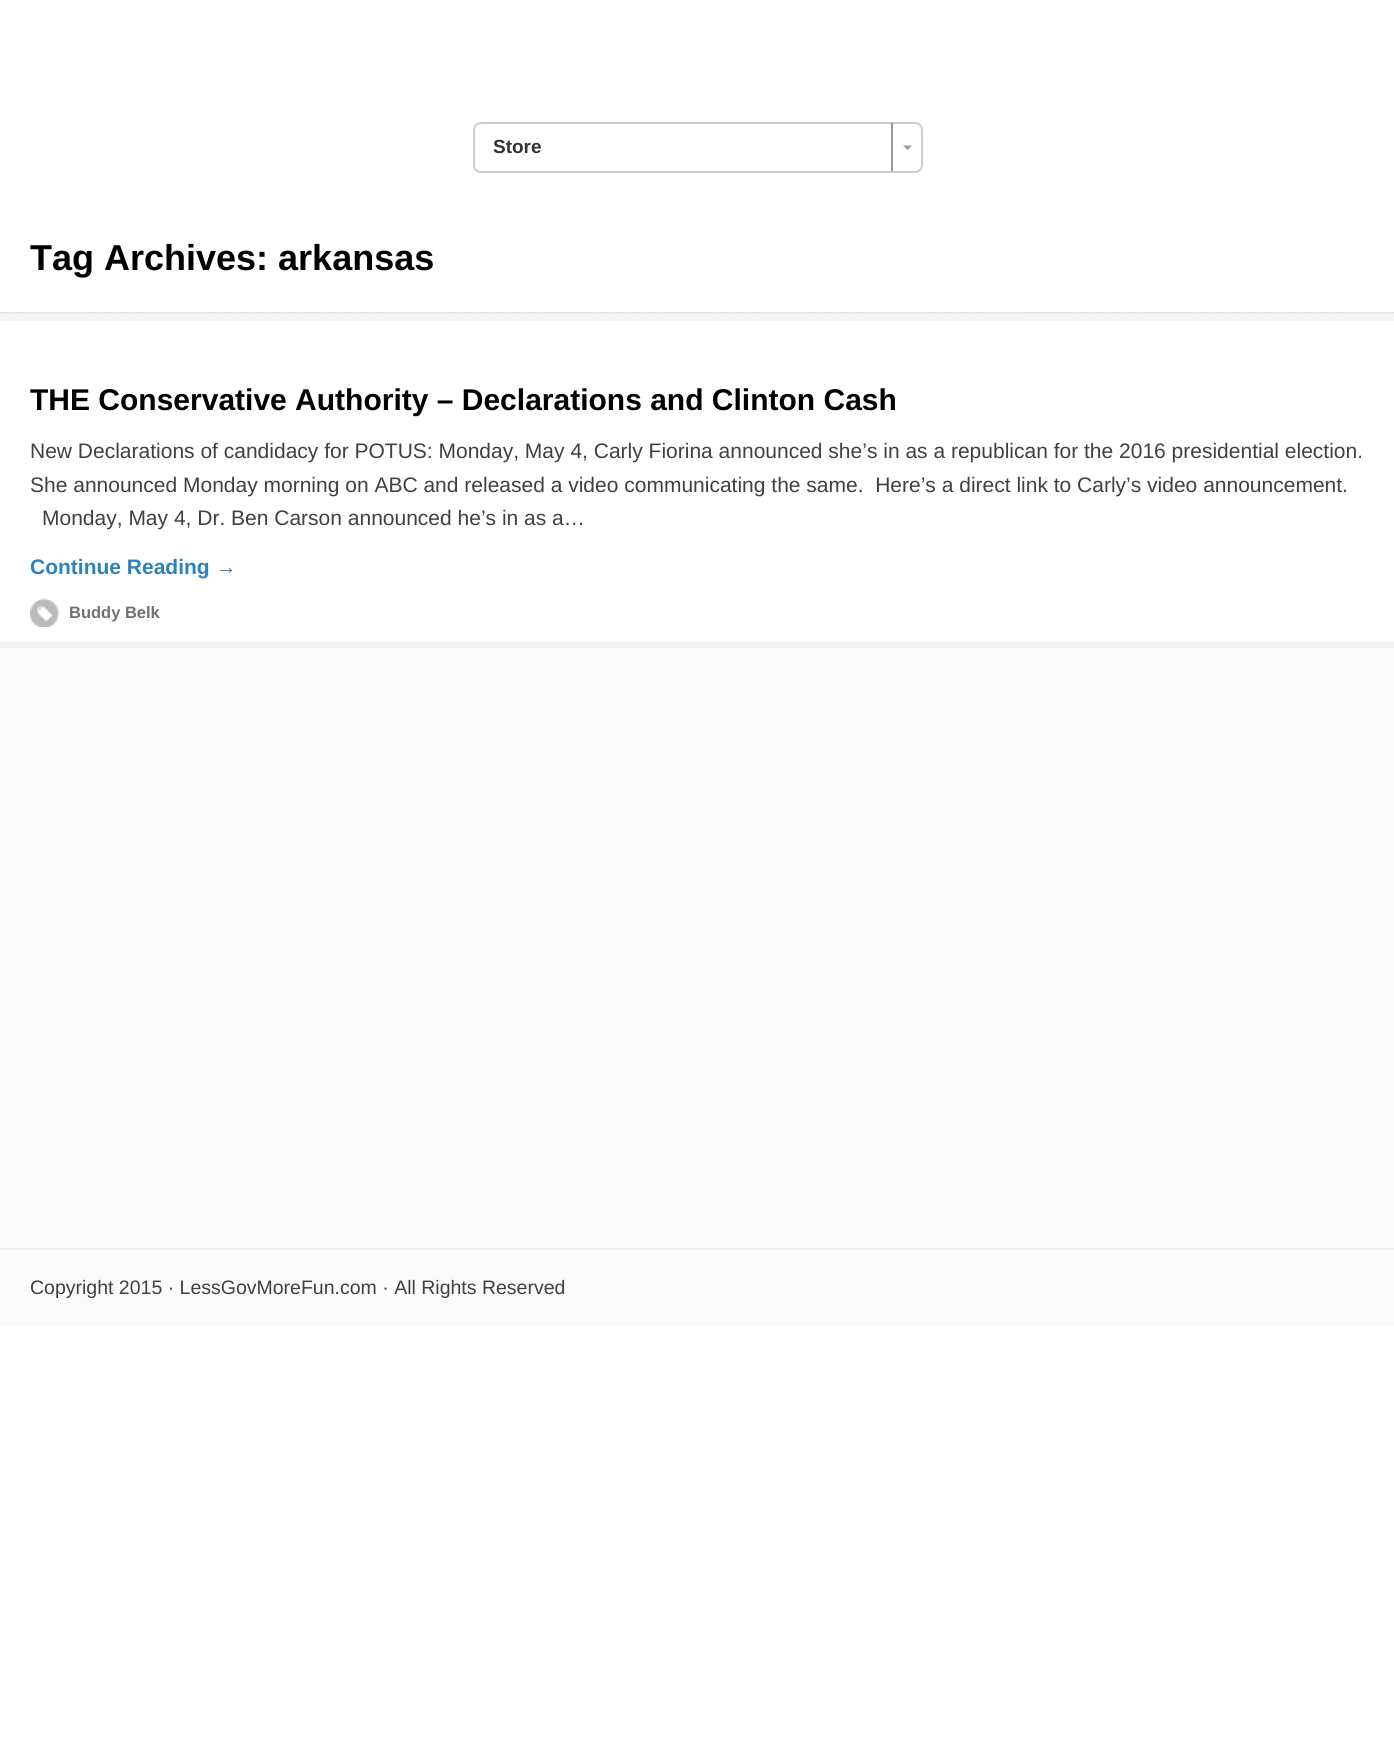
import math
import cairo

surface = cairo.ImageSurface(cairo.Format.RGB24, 1394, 1750)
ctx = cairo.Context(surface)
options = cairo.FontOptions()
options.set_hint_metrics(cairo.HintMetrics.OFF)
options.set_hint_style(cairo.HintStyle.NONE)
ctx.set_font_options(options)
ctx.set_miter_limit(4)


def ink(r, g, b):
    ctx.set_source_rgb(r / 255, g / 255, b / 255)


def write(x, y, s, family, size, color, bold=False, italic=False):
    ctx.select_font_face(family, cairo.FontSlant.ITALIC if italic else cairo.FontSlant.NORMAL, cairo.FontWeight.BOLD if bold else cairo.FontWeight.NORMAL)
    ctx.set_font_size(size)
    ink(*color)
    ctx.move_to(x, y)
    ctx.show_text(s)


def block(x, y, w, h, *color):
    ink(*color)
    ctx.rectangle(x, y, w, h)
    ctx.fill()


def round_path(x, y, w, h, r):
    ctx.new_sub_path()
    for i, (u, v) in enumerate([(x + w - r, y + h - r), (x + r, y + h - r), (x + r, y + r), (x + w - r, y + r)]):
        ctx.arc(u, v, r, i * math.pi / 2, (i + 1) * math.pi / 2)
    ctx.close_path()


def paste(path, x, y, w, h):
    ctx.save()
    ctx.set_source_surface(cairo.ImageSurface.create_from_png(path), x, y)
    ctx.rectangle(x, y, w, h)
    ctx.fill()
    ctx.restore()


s1 = dict(family="Liberation Sans", size=19, color=(51, 51, 51), bold=True)
s2 = dict(family="Liberation Sans", size=36, color=(0, 0, 0), bold=True)
s3 = dict(family="Liberation Sans", size=30, color=(0, 0, 0), bold=True)
s4 = dict(family="Liberation Sans", size=21, color=(64, 64, 64))
s5 = dict(family="Liberation Sans", size=21, color=(46, 130, 188), bold=True)
s6 = dict(family="Liberation Sans", size=16.5, color=(112, 112, 112), bold=True)
s7 = dict(family="Liberation Sans", size=19.5, color=(64, 64, 64))

ink(255, 255, 255)
ctx.paint()
round_path(474, 123, 448, 49, 7)
ink(204, 204, 204)
ctx.stroke()
write(493, 153, "Store", **s1)
block(891, 123, 2, 48, 153, 153, 153)
ctx.new_path()
ctx.move_to(903, 145.5)
ctx.line_to(912, 145.5)
ctx.line_to(907.5, 150)
ctx.close_path()
ctx.fill()
paste("pic1.png", 0, 312, 1394, 9)
write(30, 270, "Tag Archives: arkansas", **s2)
write(30, 410, "THE Conservative Authority – Declarations and Clinton Cash", **s3)
write(30, 458, "New Declarations of candidacy for POTUS: Monday, May 4, Carly Fiorina announced she’s in as a republican for the 2016 presidential election.", **s4)
write(30, 492, "She announced Monday morning on ABC and released a video communicating the same.  Here’s a direct link to Carly’s video announcement.", **s4)
write(42, 525, "Monday, May 4, Dr. Ben Carson announced he’s in as a…", **s4)
write(30, 574, "Continue Reading →", **s5)
paste("pic2.png", 30, 598, 29, 29)
write(69, 618, "Buddy Belk", **s6)
block(0, 648, 1394, 600, 252, 252, 252)
block(0, 642, 1394, 6, 240, 240, 240)
block(0, 1250, 1394, 76, 251, 251, 251)
block(0, 1248, 1394, 2, 240, 240, 240)
write(30, 1294, "Copyright 2015 · LessGovMoreFun.com · All Rights Reserved", **s7)
surface.write_to_png("screenshot.png")
